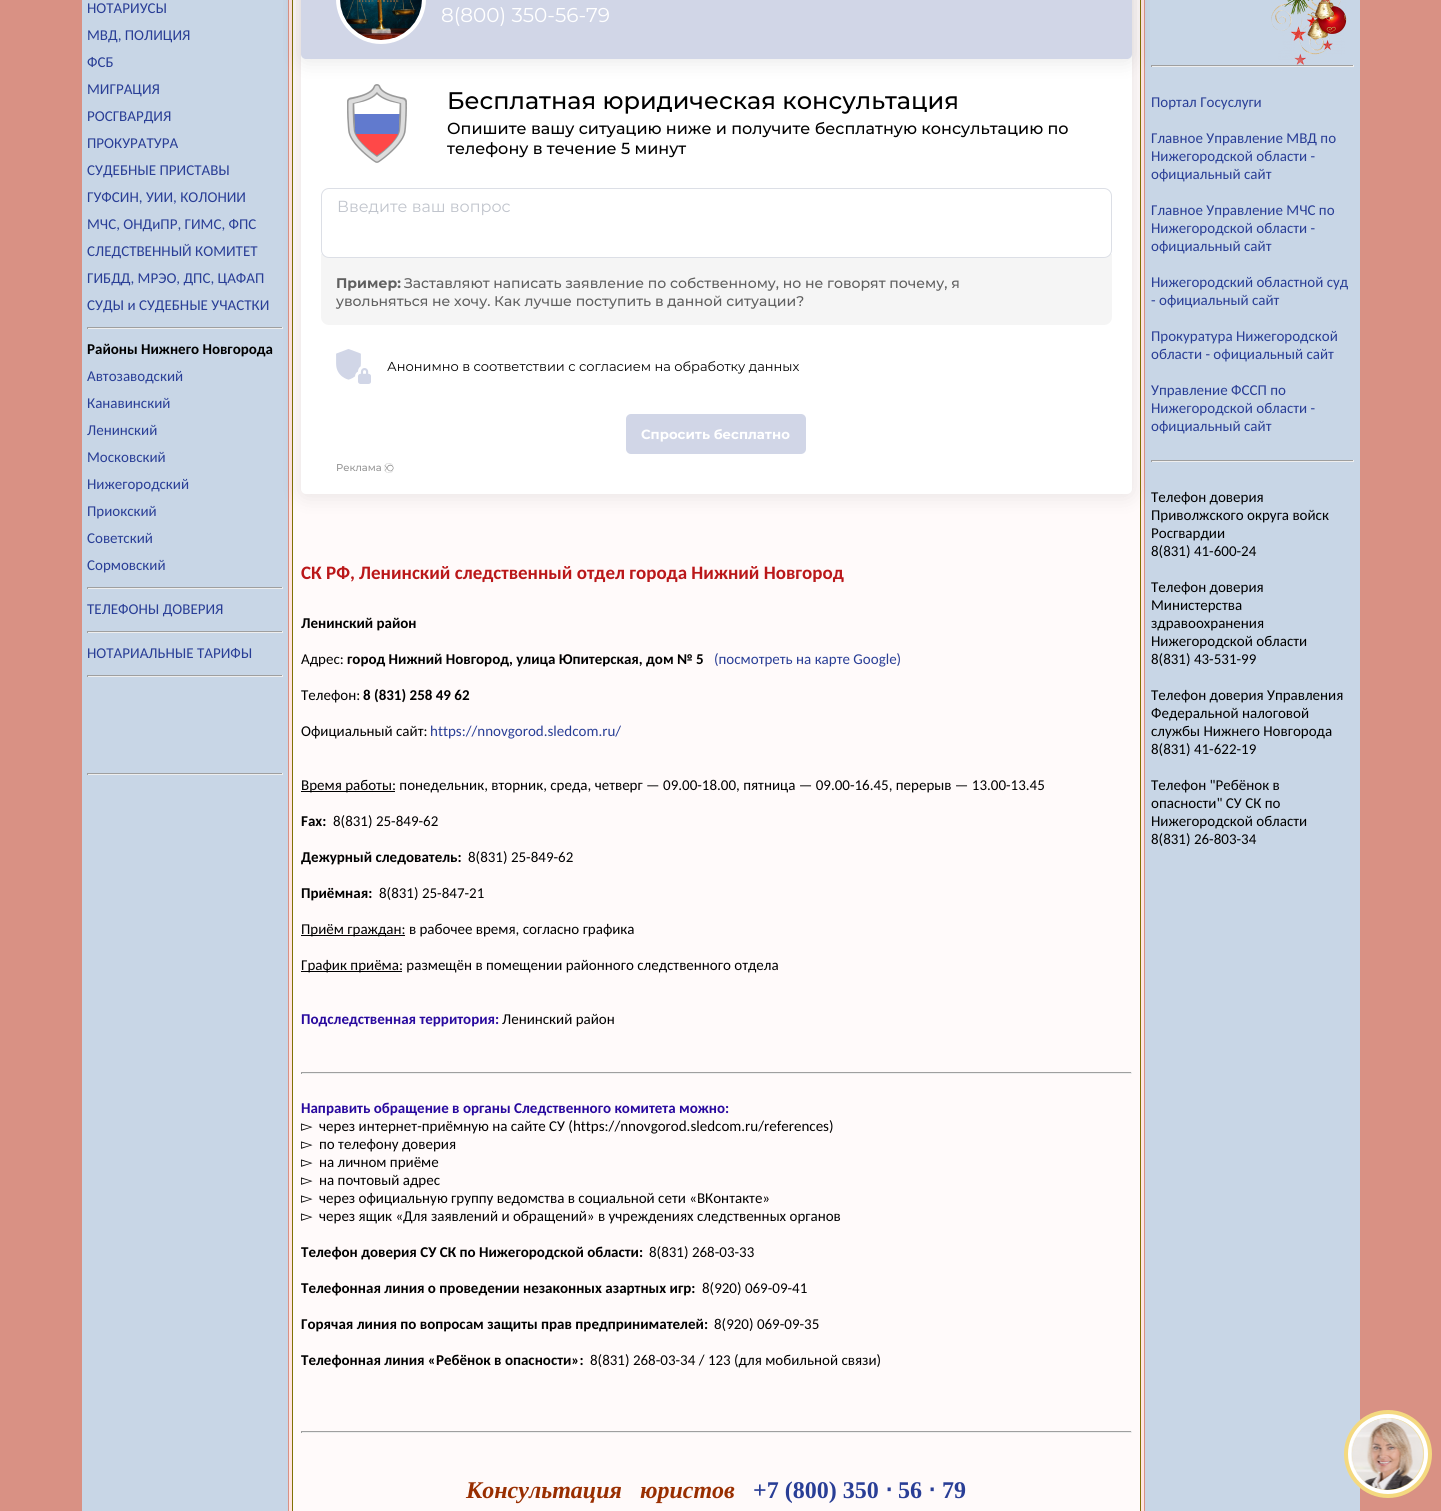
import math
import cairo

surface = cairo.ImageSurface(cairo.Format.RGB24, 1441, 1511)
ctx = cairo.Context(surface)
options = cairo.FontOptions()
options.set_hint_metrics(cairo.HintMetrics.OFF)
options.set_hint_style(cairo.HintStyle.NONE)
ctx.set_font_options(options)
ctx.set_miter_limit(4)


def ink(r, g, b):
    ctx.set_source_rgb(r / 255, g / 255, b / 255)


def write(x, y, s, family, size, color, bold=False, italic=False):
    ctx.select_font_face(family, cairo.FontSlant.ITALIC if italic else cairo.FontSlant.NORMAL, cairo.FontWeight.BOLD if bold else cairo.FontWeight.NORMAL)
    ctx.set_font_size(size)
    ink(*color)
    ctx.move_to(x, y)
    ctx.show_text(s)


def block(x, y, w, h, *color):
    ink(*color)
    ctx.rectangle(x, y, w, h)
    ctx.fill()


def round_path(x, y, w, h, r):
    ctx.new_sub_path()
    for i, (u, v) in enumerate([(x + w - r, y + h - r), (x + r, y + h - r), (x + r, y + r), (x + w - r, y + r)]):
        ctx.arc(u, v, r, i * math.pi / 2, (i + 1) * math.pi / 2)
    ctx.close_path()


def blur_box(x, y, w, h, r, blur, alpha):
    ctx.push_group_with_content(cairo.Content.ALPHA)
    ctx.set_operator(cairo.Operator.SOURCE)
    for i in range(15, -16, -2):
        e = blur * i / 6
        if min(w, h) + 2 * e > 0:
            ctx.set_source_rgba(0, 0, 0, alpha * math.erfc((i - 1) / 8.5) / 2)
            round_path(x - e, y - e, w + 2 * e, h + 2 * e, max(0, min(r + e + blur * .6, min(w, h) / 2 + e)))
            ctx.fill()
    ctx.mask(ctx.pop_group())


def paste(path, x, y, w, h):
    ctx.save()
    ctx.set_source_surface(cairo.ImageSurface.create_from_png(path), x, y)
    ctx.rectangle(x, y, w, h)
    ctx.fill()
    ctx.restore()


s1 = dict(family="Carlito", size=15, color=(41, 62, 150))
s2 = dict(family="Carlito", size=15, color=(0, 0, 0), bold=True)
s3 = dict(family="Montserrat", size=20, color=(255, 255, 255))
s4 = dict(family="Montserrat Medium", size=24, color=(0, 0, 0))
s5 = dict(family="Montserrat Medium", size=16, color=(0, 0, 0))
s6 = dict(family="Montserrat", size=16, color=(192, 196, 204))
s7 = dict(family="Montserrat", size=14, color=(96, 96, 96), bold=True)
s8 = dict(family="Montserrat Medium", size=14, color=(96, 96, 96))
s9 = dict(family="Montserrat", size=13, color=(0, 0, 0))
s10 = dict(family="Montserrat", size=13.25, color=(255, 255, 255), bold=True)
s11 = dict(family="Montserrat Medium", size=10, color=(150, 150, 150))
s12 = dict(family="Carlito", size=19, color=(186, 23, 25), bold=True)
s13 = dict(family="Carlito", size=15, color=(0, 0, 0))
s14 = dict(family="Carlito", size=15, color=(40, 9, 158), bold=True)
s15 = dict(family="DejaVu Sans", size=15, color=(0, 0, 0))
s16 = dict(family="Liberation Serif", size=24, color=(153, 46, 0), bold=True, italic=True)
s17 = dict(family="Liberation Serif", size=24, color=(41, 62, 150), bold=True)
s18 = dict(family="DejaVu Sans", size=24, color=(41, 62, 150), bold=True)

ink(217, 145, 132)
ctx.paint()
block(82, 0, 206, 1511, 200, 214, 230)
write(87, 13, "НОТАРИУСЫ", **s1)
write(87, 40, "МВД, ПОЛИЦИЯ", **s1)
write(87, 67, "ФСБ", **s1)
write(87, 94, "МИГРАЦИЯ", **s1)
write(87, 121, "РОСГВАРДИЯ", **s1)
write(87, 148, "ПРОКУРАТУРА", **s1)
write(87, 175, "СУДЕБНЫЕ ПРИСТАВЫ", **s1)
write(87, 202, "ГУФСИН, УИИ, КОЛОНИИ", **s1)
write(87, 229, "МЧС, ОНДиПР, ГИМС, ФПС", **s1)
write(87, 256, "СЛЕДСТВЕННЫЙ КОМИТЕТ", **s1)
write(87, 283, "ГИБДД, МРЭО, ДПС, ЦАФАП", **s1)
write(87, 310, "СУДЫ и СУДЕБНЫЕ УЧАСТКИ", **s1)
block(87, 327, 196, 1, 159, 159, 159)
block(282, 327, 1, 2, 238, 238, 238)
block(87, 328, 196, 1, 238, 238, 238)
block(87, 327, 1, 2, 159, 159, 159)
write(87, 354, "Районы Нижнего Новгорода", **s2)
write(87, 381, "Автозаводский", **s1)
write(87, 408, "Канавинский", **s1)
write(87, 435, "Ленинский", **s1)
write(87, 462, "Московский", **s1)
write(87, 489, "Нижегородский", **s1)
write(87, 516, "Приокский", **s1)
write(87, 543, "Советский", **s1)
write(87, 570, "Сормовский", **s1)
block(87, 587, 196, 1, 159, 159, 159)
block(282, 587, 1, 2, 238, 238, 238)
block(87, 588, 196, 1, 238, 238, 238)
block(87, 587, 1, 2, 159, 159, 159)
write(87, 614, "ТЕЛЕФОНЫ ДОВЕРИЯ", **s1)
block(87, 631, 196, 1, 159, 159, 159)
block(282, 631, 1, 2, 238, 238, 238)
block(87, 632, 196, 1, 238, 238, 238)
block(87, 631, 1, 2, 159, 159, 159)
write(87, 658, "НОТАРИАЛЬНЫЕ ТАРИФЫ", **s1)
block(87, 675, 196, 1, 159, 159, 159)
block(282, 675, 1, 2, 238, 238, 238)
block(87, 676, 196, 1, 238, 238, 238)
block(87, 675, 1, 2, 159, 159, 159)
block(87, 773, 196, 1, 159, 159, 159)
block(282, 773, 1, 2, 238, 238, 238)
block(87, 774, 196, 1, 238, 238, 238)
block(87, 773, 1, 2, 159, 159, 159)
block(289, 0, 855, 1511, 255, 228, 225)
block(292, 0, 849, 1511, 128, 114, 5)
block(293, 0, 847, 1511, 255, 250, 250)
block(1145, 0, 215, 1511, 200, 214, 230)
block(1151, 65, 203, 1, 159, 159, 159)
block(1353, 65, 1, 2, 238, 238, 238)
block(1151, 66, 203, 1, 238, 238, 238)
block(1151, 65, 1, 2, 159, 159, 159)
block(1151, 460, 203, 1, 159, 159, 159)
block(1353, 460, 1, 2, 238, 238, 238)
block(1151, 461, 203, 1, 238, 238, 238)
block(1151, 460, 1, 2, 159, 159, 159)
ink(0, 0, 0)
blur_box(301, -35, 831, 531, 5, 10, 0.1)
ink(255, 255, 255)
round_path(301, -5, 831, 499, 5)
ctx.fill()
ink(0, 0, 0)
blur_box(301, -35, 831, 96, 5, 10, 0.1)
ink(209, 214, 231)
round_path(301, -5, 831, 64, 5)
ctx.fill()
ctx.arc(381, -1, 43, 0, 2 * math.pi)
ink(255, 255, 255)
ctx.set_line_width(4)
ctx.stroke()
paste("pic1.png", 340, 0, 82, 40)
write(441, 22, "8(800) 350-56-79", **s3)
paste("pic2.png", 347, 84, 60, 79)
write(447, 109, "Бесплатная юридическая консультация", **s4)
write(447, 134, "Опишите вашу ситуацию ниже и получите бесплатную консультацию по", **s5)
write(447, 154, "телефону в течение 5 минут", **s5)
ink(245, 245, 245)
ctx.new_path()
ctx.move_to(321, 254)
ctx.line_to(1112, 254)
ctx.line_to(1112, 317)
ctx.curve_to(1112, 321.5, 1108.5, 325, 1104, 325)
ctx.line_to(329, 325)
ctx.curve_to(324.5, 325, 321, 321.5, 321, 317)
ctx.close_path()
ctx.fill()
ink(255, 255, 255)
round_path(321.5, 188.5, 790, 69, 7.5)
ctx.fill_preserve()
ink(220, 223, 230)
ctx.set_line_width(1)
ctx.stroke()
write(337, 212, "Введите ваш вопрос", **s6)
write(336, 288, "Пример:", **s7)
write(404, 288, "Заставляют написать заявление по собственному, но не говорят почему, я", **s8)
write(336, 306, "увольняться не хочу. Как лучше поступить в данной ситуации?", **s8)
paste("pic3.png", 336, 349, 35, 35)
write(387, 371, "Анонимно в соответствии с согласием на обработку данных", **s9)
ink(209, 214, 231)
round_path(626, 414, 180, 40, 5)
ctx.fill()
write(641, 439, "Спросить бесплатно", **s10)
write(336, 471, "Реклама", **s11)
paste("pic4.png", 384, 463, 10, 10)
write(301, 579, "СК РФ, Ленинский следственный отдел города Нижний Новгород", **s12)
write(301, 628, "Ленинский район", **s2)
write(301, 664, "Адрес:", **s13)
write(347, 664, "город Нижний Новгород, улица Юпитерская, дом № 5", **s2)
write(714, 664, "(посмотреть на карте Google)", **s1)
write(301, 700, "Телефон:", **s13)
write(363, 700, "8 (831) 258 49 62", **s2)
write(301, 736, "Официальный сайт:", **s13)
write(430, 736, "https://nnovgorod.sledcom.ru/", **s1)
block(301, 791, 94, 1, 0, 0, 0)
write(301, 790, "Время работы: понедельник, вторник, среда, четверг — 09.00-18.00, пятница — 09.00-16.45, перерыв — 13.00-13.45", **s13)
write(301, 826, "Fax:", **s2)
write(333, 826, "8(831) 25-849-62", **s13)
write(301, 862, "Дежурный следователь:", **s2)
write(468, 862, "8(831) 25-849-62", **s13)
write(301, 898, "Приёмная:", **s2)
write(379, 898, "8(831) 25-847-21", **s13)
block(301, 935, 104, 1, 0, 0, 0)
write(301, 934, "Приём граждан: в рабочее время, согласно графика", **s13)
block(301, 971, 101, 1, 0, 0, 0)
write(301, 970, "График приёма: размещён в помещении районного следственного отдела", **s13)
write(301, 1024, "Подследственная территория:", **s14)
write(502, 1024, "Ленинский район", **s13)
block(301, 1072, 831, 1, 159, 159, 159)
block(1131, 1072, 1, 2, 238, 238, 238)
block(301, 1073, 831, 1, 238, 238, 238)
block(301, 1072, 1, 2, 159, 159, 159)
write(301, 1113, "Направить обращение в органы Следственного комитета можно:", **s14)
write(301, 1131, "▻", **s15)
write(319, 1131, "через интернет-приёмную на сайте СУ (https://nnovgorod.sledcom.ru/references)", **s13)
write(301, 1149, "▻", **s15)
write(319, 1149, "по телефону доверия", **s13)
write(301, 1167, "▻", **s15)
write(319, 1167, "на личном приёме", **s13)
write(301, 1185, "▻", **s15)
write(319, 1185, "на почтовый адрес", **s13)
write(301, 1203, "▻", **s15)
write(319, 1203, "через официальную группу ведомства в социальной сети «ВКонтакте»", **s13)
write(301, 1221, "▻", **s15)
write(319, 1221, "через ящик «Для заявлений и обращений» в учреждениях следственных органов", **s13)
write(301, 1257, "Телефон доверия СУ СК по Нижегородской области:", **s2)
write(649, 1257, "8(831) 268-03-33", **s13)
write(301, 1293, "Телефонная линия о проведении незаконных азартных игр:", **s2)
write(702, 1293, "8(920) 069-09-41", **s13)
write(301, 1329, "Горячая линия по вопросам защиты прав предпринимателей:", **s2)
write(714, 1329, "8(920) 069-09-35", **s13)
write(301, 1365, "Телефонная линия «Ребёнок в опасности»:", **s2)
write(590, 1365, "8(831) 268-03-34 / 123 (для мобильной связи)", **s13)
block(301, 1431, 831, 1, 159, 159, 159)
block(1131, 1431, 1, 2, 238, 238, 238)
block(301, 1432, 831, 1, 238, 238, 238)
block(301, 1431, 1, 2, 159, 159, 159)
write(466, 1498, "Консультация   юристов", **s16)
write(753, 1498, "+7 (800) 350", **s17)
write(885, 1498, "⋅", **s18)
write(898, 1498, "56", **s17)
write(928, 1498, "⋅", **s18)
write(942, 1498, "79", **s17)
paste("pic5.png", 1271, 0, 76, 65)
write(1151, 107, "Портал Госуслуги", **s1)
write(1151, 143, "Главное Управление МВД по", **s1)
write(1151, 161, "Нижегородской области -", **s1)
write(1151, 179, "официальный сайт", **s1)
write(1151, 215, "Главное Управление МЧС по", **s1)
write(1151, 233, "Нижегородской области -", **s1)
write(1151, 251, "официальный сайт", **s1)
write(1151, 287, "Нижегородский областной суд", **s1)
write(1151, 305, "- официальный сайт", **s1)
write(1151, 341, "Прокуратура Нижегородской", **s1)
write(1151, 359, "области - официальный сайт", **s1)
write(1151, 395, "Управление ФССП по", **s1)
write(1151, 413, "Нижегородской области -", **s1)
write(1151, 431, "официальный сайт", **s1)
write(1151, 502, "Телефон доверия", **s13)
write(1151, 520, "Приволжского округа войск", **s13)
write(1151, 538, "Росгвардии", **s13)
write(1151, 556, "8(831) 41-600-24", **s13)
write(1151, 592, "Телефон доверия", **s13)
write(1151, 610, "Министерства", **s13)
write(1151, 628, "здравоохранения", **s13)
write(1151, 646, "Нижегородской области", **s13)
write(1151, 664, "8(831) 43-531-99", **s13)
write(1151, 700, "Телефон доверия Управления", **s13)
write(1151, 718, "Федеральной налоговой", **s13)
write(1151, 736, "службы Нижнего Новгорода", **s13)
write(1151, 754, "8(831) 41-622-19", **s13)
write(1151, 790, "Телефон \"Ребёнок в", **s13)
write(1151, 808, "опасности\" СУ СК по", **s13)
write(1151, 826, "Нижегородской области", **s13)
write(1151, 844, "8(831) 26-803-34", **s13)
ink(244, 217, 127)
ctx.new_path()
ctx.arc(1388, 1454, 44, 0, 2 * math.pi)
ctx.fill()
ctx.arc(1388, 1454, 38, 0, 2 * math.pi)
ink(255, 255, 255)
ctx.set_line_width(4)
ctx.stroke()
paste("pic6.png", 1351, 1418, 73, 72)
surface.write_to_png("screenshot.png")
